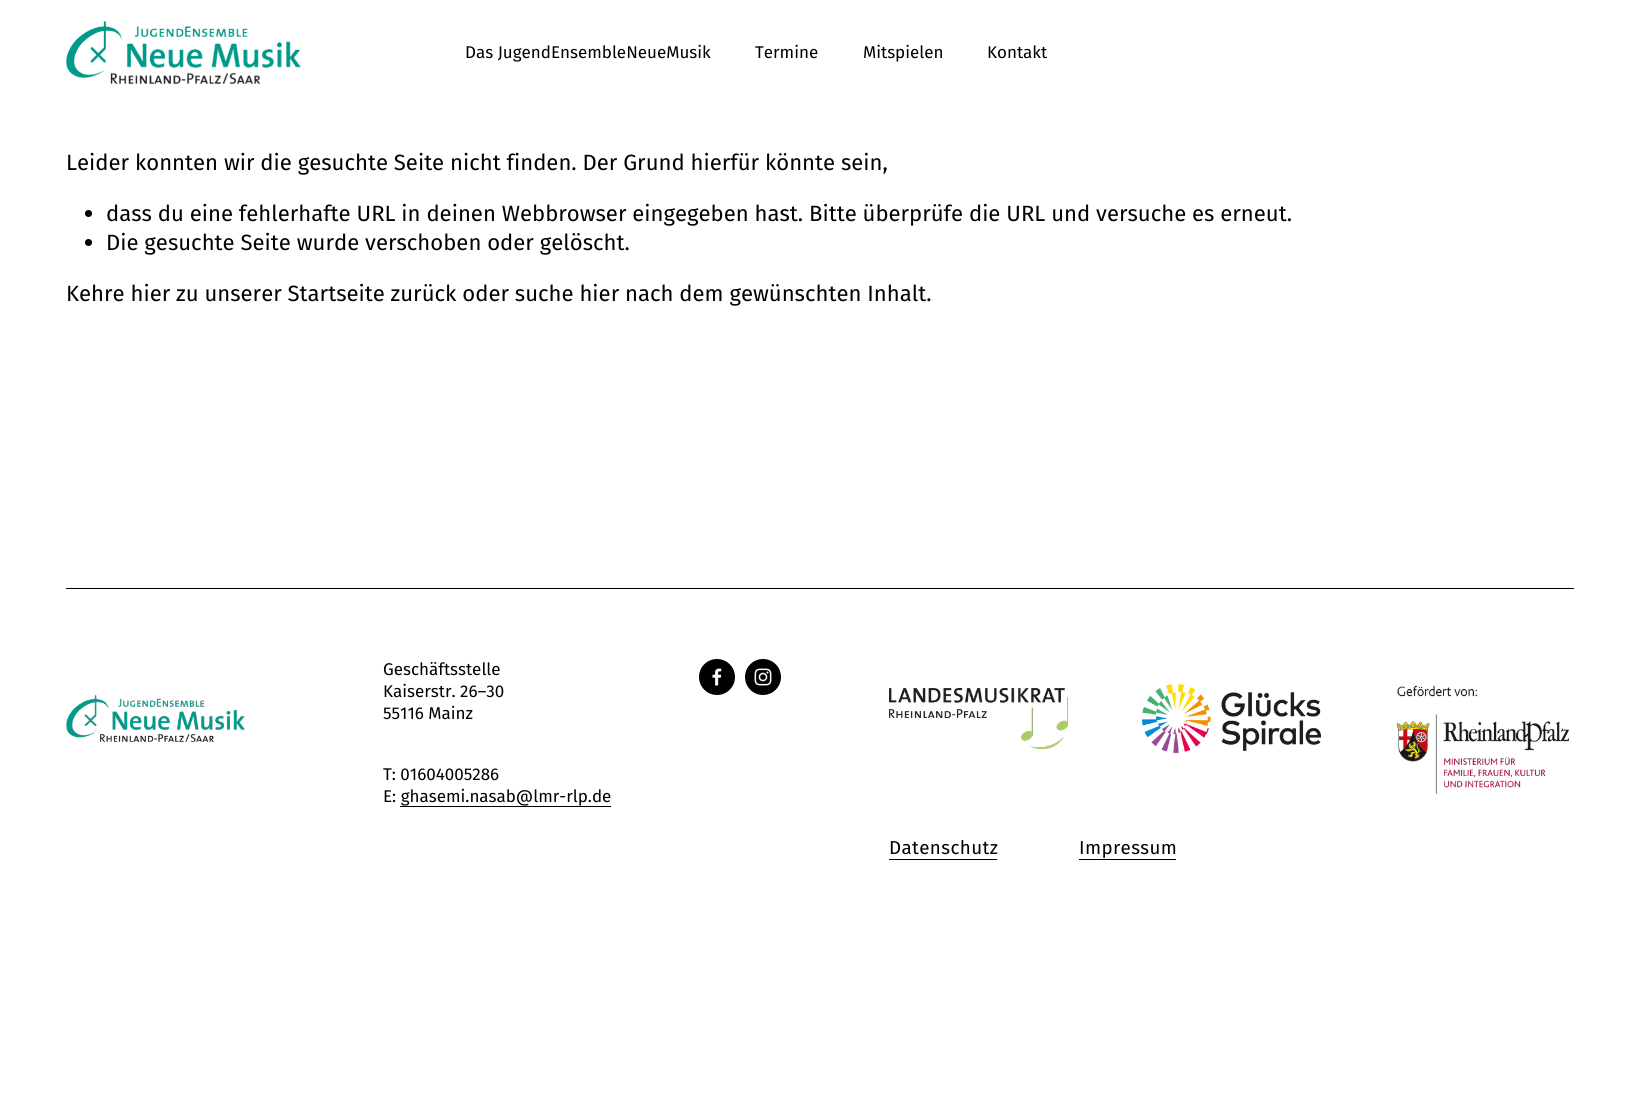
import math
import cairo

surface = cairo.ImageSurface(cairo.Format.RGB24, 1640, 1118)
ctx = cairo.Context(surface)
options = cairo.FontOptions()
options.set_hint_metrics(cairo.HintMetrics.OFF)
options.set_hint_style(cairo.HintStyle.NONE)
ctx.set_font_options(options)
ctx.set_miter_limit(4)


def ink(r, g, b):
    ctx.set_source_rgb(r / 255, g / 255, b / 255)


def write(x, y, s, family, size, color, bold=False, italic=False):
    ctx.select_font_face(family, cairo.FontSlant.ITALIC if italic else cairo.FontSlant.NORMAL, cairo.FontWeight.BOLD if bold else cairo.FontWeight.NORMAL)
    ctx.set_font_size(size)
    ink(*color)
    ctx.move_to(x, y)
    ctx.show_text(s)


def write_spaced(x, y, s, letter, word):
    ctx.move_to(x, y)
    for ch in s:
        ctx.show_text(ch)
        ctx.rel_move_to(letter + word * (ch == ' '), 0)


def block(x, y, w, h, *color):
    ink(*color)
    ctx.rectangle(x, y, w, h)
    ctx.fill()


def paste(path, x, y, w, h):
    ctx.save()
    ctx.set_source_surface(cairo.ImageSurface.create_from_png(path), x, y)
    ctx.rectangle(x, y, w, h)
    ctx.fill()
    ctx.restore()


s1 = dict(family="Fira Sans", size=17, color=(0, 0, 0))
s2 = dict(family="Fira Sans", size=22.1, color=(0, 0, 0))

ink(255, 255, 255)
ctx.paint()
paste("pic1.png", 66, 21, 235, 64)
write(465, 58, "Das JugendEnsembleNeueMusik", **s1)
write(755, 58, "Termine", **s1)
write(863, 58, "Mitspielen", **s1)
write(987, 58, "Kontakt", **s1)
write(66, 170, "Leider konnten wir die gesuchte Seite nicht finden. Der Grund hierfür könnte sein,", **s2)
ctx.new_path()
ctx.arc(88.5, 213.5, 3.5, 0, 2 * math.pi)
ctx.fill()
write(106, 221, "dass du eine fehlerhafte URL in deinen Webbrowser eingegeben hast. Bitte überprüfe die URL und versuche es erneut.", **s2)
ctx.new_path()
ctx.arc(88.5, 242.5, 3.5, 0, 2 * math.pi)
ctx.fill()
write(106, 250, "Die gesuchte Seite wurde verschoben oder gelöscht.", **s2)
write(66, 301, "Kehre hier zu unserer Startseite zurück oder suche hier nach dem gewünschten Inhalt.", **s2)
block(66, 588, 1508, 1, 0, 0, 0)
paste("pic2.png", 66, 695, 179, 47)
write(383, 675, "Geschäftsstelle", **s1)
write(383, 697, "Kaiserstr. 26–30", **s1)
write(383, 719, "55116 Mainz", **s1)
write(383, 780, "T: 01604005286", **s1)
write(383, 802, "E: ghasemi.nasab@lmr-rlp.de", **s1)
block(400, 806, 211, 1, 0, 0, 0)
ctx.new_path()
ctx.arc(717, 677, 18, 0, 2 * math.pi)
ctx.fill()
paste("pic3.png", 712, 668, 10, 18)
ctx.arc(763, 677, 18, 0, 2 * math.pi)
ctx.fill()
paste("pic4.png", 754, 668, 18, 18)
paste("pic5.png", 889, 688, 179, 61)
paste("pic6.png", 1142, 684, 179, 69)
paste("pic7.png", 1396, 685, 174, 109)
block(889, 859, 108, 1, 0, 0, 0)
ctx.set_font_size(18.75)
write_spaced(889, 854, "Datenschutz", 0.4, 0)
block(1079, 859, 97, 1, 0, 0, 0)
write_spaced(1079, 854, "Impressum", 0.4, 0)
surface.write_to_png("screenshot.png")
